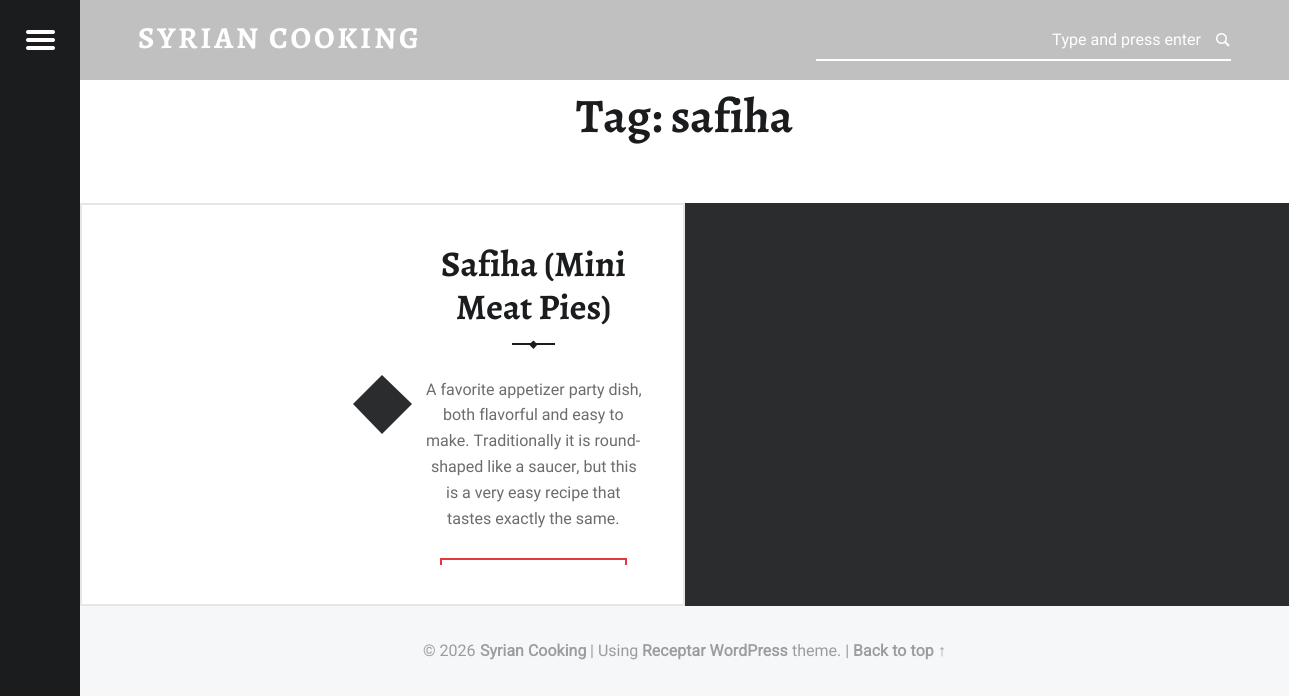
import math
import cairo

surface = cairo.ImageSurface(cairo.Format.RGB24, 1289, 696)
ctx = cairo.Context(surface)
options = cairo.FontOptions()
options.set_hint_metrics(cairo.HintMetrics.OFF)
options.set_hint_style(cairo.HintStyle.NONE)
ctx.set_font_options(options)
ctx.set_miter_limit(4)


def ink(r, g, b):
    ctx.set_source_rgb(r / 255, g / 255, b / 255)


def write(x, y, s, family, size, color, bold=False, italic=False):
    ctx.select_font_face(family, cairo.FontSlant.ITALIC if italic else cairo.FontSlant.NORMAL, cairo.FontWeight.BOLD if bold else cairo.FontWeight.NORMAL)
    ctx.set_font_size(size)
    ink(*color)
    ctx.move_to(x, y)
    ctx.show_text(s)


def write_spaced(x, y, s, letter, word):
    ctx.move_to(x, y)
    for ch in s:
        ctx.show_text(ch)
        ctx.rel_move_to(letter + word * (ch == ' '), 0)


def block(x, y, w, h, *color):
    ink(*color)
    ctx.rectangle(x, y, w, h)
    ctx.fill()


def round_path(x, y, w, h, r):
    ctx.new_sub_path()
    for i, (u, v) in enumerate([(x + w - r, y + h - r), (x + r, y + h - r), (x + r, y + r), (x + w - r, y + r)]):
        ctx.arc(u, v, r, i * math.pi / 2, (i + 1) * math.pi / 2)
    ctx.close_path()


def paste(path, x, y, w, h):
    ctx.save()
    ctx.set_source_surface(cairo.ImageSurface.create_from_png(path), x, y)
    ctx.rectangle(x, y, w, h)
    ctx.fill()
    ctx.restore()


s1 = dict(family="Roboto", size=16, color=(255, 255, 255))
s2 = dict(family="Alegreya", size=48, color=(26, 28, 30), bold=True)
s3 = dict(family="Alegreya", size=36, color=(26, 28, 30), bold=True)
s4 = dict(family="Roboto", size=16, color=(106, 108, 110))
s5 = dict(family="Roboto", size=16, color=(154, 156, 158))
s6 = dict(family="Roboto", size=16, color=(154, 156, 158), bold=True)
s7 = dict(family="Liberation Sans", size=16, color=(154, 156, 158), bold=True)

ink(255, 255, 255)
ctx.paint()
block(0, 0, 80, 696, 26, 28, 30)
ink(255, 255, 255)
round_path(26, 30, 29, 4, 2)
ctx.fill()
round_path(26, 38, 29, 4, 2)
ctx.fill()
round_path(26, 46, 29, 4, 2)
ctx.fill()
block(80, 0, 1209, 80, 192, 192, 192)
ctx.select_font_face("Alegreya", cairo.FontSlant.NORMAL, cairo.FontWeight.BOLD)
ctx.set_font_size(30.5)
ink(255, 255, 255)
write_spaced(138, 48, "SYRIAN COOKING", 2.75, 0)
block(816, 59, 415, 2, 255, 255, 255)
write(1052, 45, "Type and press enter", **s1)
paste("pic1.png", 1216, 33, 14, 14)
write(576, 132, "Tag: safiha", **s2)
block(685, 203, 604, 403, 42, 44, 46)
ctx.new_path()
ctx.move_to(382, 375)
ctx.line_to(412, 404)
ctx.line_to(382, 434)
ctx.line_to(353, 404)
ctx.close_path()
ctx.fill()
block(512, 343, 43, 2, 26, 28, 30)
ctx.new_path()
ctx.move_to(533.5, 340.5)
ctx.line_to(537.5, 344.5)
ctx.line_to(533.5, 349)
ctx.line_to(529, 344.5)
ctx.close_path()
ctx.fill()
ctx.save()
ctx.rectangle(382, 243, 303, 322)
ctx.clip()
ctx.rectangle(441, 559, 185, 47)
ink(229, 55, 57)
ctx.stroke()
ctx.restore()
ctx.rectangle(81, 204, 603, 401)
ink(230, 230, 230)
ctx.stroke()
write(441, 276, "Safiha (Mini", **s3)
write(456, 319, "Meat Pies)", **s3)
write(426, 395, "A favorite appetizer party dish,", **s4)
write(443, 420, "both flavorful and easy to", **s4)
write(426, 446, "make. Traditionally it is round-", **s4)
write(431, 472, "shaped like a saucer, but this", **s4)
write(446, 498, "is a very easy recipe that", **s4)
write(447, 524, "tastes exactly the same.", **s4)
block(80, 606, 1209, 90, 245, 247, 249)
write(423, 656, "© 2026", **s5)
write(480, 656, "Syrian Cooking", **s6)
write(590, 656, "| Using", **s5)
write(642, 656, "Receptar WordPress", **s6)
write(792, 656, "theme. |", **s5)
write(853, 656, "Back to top", **s6)
write(938, 656, "↑", **s7)
surface.write_to_png("screenshot.png")
